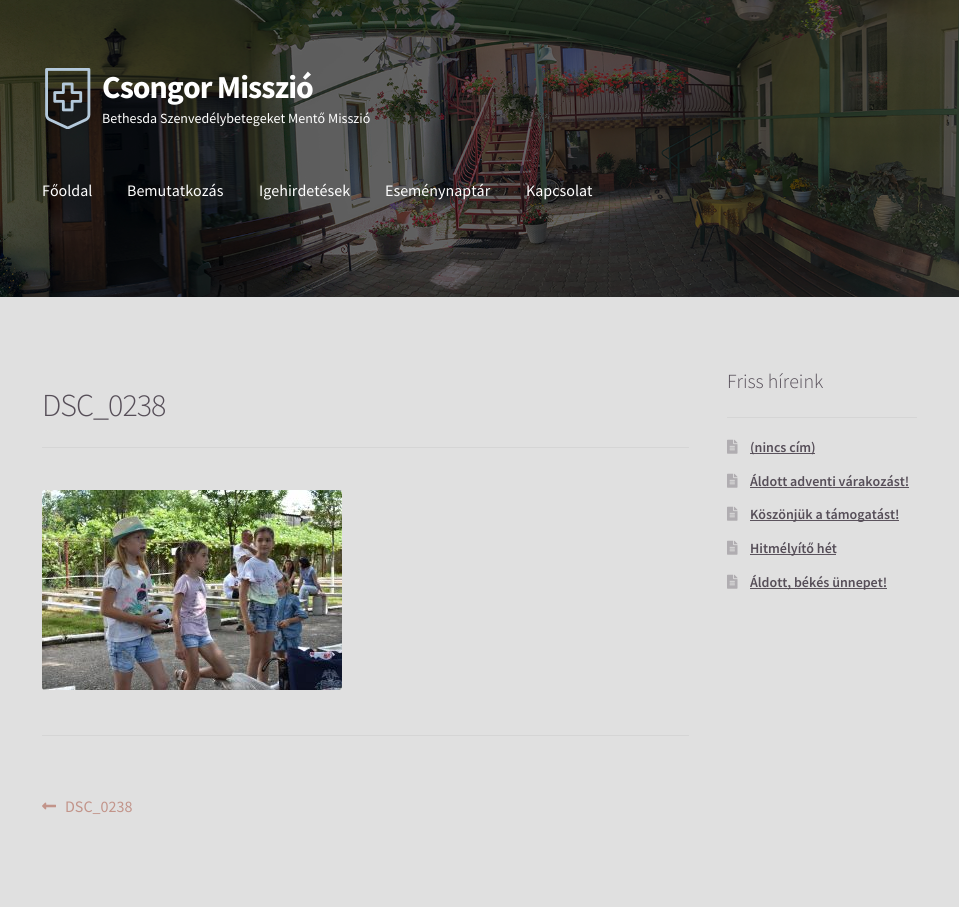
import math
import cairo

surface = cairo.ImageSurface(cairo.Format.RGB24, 959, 907)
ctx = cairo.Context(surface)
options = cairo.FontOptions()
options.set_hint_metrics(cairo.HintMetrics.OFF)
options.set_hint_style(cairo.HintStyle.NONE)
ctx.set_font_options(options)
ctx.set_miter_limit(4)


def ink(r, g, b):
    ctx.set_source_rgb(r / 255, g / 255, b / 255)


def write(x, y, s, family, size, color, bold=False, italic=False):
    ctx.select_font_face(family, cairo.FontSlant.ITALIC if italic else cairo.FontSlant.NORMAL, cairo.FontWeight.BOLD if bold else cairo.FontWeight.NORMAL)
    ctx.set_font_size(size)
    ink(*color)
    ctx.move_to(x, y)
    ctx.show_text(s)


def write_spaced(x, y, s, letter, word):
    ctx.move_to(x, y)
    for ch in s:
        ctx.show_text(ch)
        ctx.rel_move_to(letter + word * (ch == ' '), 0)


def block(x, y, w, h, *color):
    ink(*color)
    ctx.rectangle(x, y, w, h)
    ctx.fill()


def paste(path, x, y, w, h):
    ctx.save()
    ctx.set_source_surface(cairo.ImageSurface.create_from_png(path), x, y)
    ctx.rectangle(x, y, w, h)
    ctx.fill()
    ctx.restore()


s1 = dict(family="Source Sans Pro", size=14, color=(255, 255, 255))
s2 = dict(family="Source Sans Pro", size=16, color=(255, 255, 255))
s3 = dict(family="Source Sans Pro", size=16, color=(194, 148, 138))
s4 = dict(family="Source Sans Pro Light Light", size=20, color=(86, 78, 88))
s5 = dict(family="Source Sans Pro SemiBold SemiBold", size=14, color=(86, 78, 88))

ink(224, 224, 224)
ctx.paint()
paste("pic1.png", 0, 0, 959, 297)
paste("pic2.png", 45, 68, 46, 61)
ctx.select_font_face("Source Sans Pro", cairo.FontSlant.NORMAL, cairo.FontWeight.BOLD)
ctx.set_font_size(32)
ink(255, 255, 255)
write_spaced(102, 98, "Csongor Misszió", -1, 0)
write(102, 123, "Bethesda Szenvedélybetegeket Mentő Misszió", **s1)
write(42, 196, "Főoldal", **s2)
write(127, 196, "Bemutatkozás", **s2)
write(259, 196, "Igehirdetések", **s2)
write(385, 196, "Eseménynaptár", **s2)
write(526, 196, "Kapcsolat", **s2)
block(42, 447, 647, 1, 213, 213, 213)
ctx.select_font_face("Source Sans Pro Light Light")
ctx.set_font_size(32)
ink(86, 78, 88)
write_spaced(42, 416, "DSC_0238", -1, 0)
paste("pic3.png", 42, 490, 300, 200)
block(42, 735, 647, 1, 213, 213, 213)
paste("pic4.png", 42, 802, 14, 8)
write(65, 812, "DSC_0238", **s3)
block(727, 417, 190, 1, 213, 213, 213)
write(727, 388, "Friss híreink", **s4)
paste("pic5.png", 727, 439, 11, 15)
block(750, 453, 65, 1, 91, 83, 93)
write(750, 452, "(nincs cím)", **s5)
paste("pic5.png", 727, 473, 11, 15)
write(750, 486, "Áldott adventi várakozást!", **s5)
block(750, 487, 159, 1, 91, 83, 93)
paste("pic5.png", 727, 506, 11, 15)
block(750, 520, 149, 1, 91, 83, 93)
write(750, 519, "Köszönjük a támogatást!", **s5)
paste("pic5.png", 727, 540, 11, 15)
block(750, 554, 86, 1, 91, 83, 93)
write(750, 553, "Hitmélyítő hét", **s5)
paste("pic5.png", 727, 574, 11, 15)
block(750, 588, 137, 1, 91, 83, 93)
write(750, 587, "Áldott, békés ünnepet!", **s5)
surface.write_to_png("screenshot.png")
